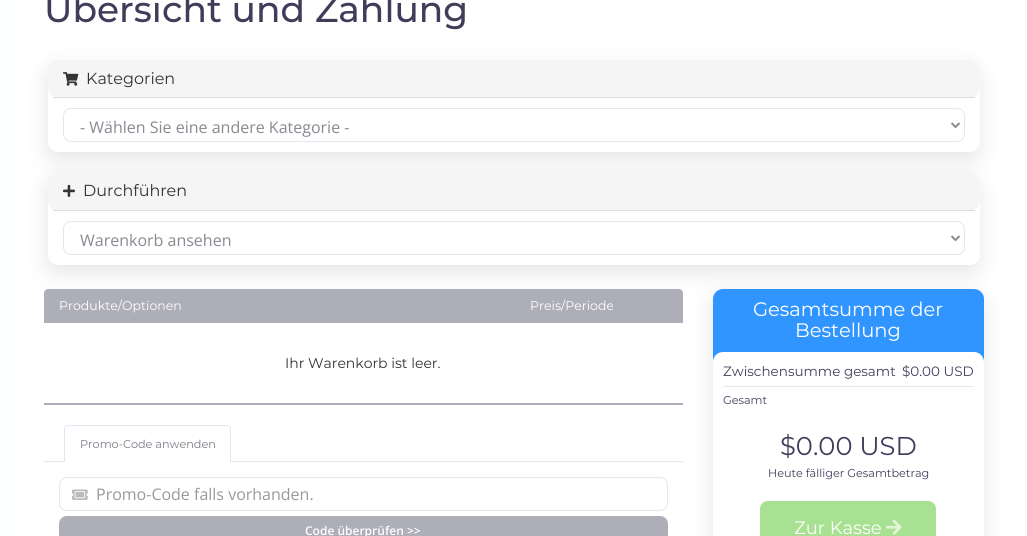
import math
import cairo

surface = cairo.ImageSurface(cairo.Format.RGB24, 1027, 536)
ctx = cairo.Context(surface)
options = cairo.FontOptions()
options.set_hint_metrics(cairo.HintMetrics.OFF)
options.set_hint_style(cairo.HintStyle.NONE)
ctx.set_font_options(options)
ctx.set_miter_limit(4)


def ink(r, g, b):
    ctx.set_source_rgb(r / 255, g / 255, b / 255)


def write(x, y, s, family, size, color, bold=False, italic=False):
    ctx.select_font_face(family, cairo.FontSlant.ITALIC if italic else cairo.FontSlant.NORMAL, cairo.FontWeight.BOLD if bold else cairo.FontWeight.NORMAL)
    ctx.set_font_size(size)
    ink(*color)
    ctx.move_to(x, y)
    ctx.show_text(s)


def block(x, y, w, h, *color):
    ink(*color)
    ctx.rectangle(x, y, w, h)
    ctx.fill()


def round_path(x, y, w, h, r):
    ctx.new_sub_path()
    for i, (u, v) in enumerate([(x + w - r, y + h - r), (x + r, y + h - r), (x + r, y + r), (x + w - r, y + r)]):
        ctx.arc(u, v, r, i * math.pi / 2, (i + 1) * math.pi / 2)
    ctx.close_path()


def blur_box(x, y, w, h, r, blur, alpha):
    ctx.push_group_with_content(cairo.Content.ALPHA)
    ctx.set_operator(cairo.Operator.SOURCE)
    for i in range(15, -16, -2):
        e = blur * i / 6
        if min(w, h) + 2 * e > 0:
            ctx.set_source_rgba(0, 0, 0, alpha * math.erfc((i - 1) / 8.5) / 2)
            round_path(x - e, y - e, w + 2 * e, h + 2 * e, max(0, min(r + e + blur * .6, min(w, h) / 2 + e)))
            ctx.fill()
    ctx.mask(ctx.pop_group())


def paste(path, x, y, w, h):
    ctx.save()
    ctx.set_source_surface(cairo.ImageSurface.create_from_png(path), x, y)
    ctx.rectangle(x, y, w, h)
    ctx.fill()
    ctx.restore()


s1 = dict(family="Montserrat Medium", size=36, color=(63, 61, 89))
s2 = dict(family="Montserrat", size=16, color=(51, 51, 51))
s3 = dict(family="Open Sans", size=16, color=(137, 137, 146))
s4 = dict(family="Montserrat", size=12.5, color=(255, 255, 255))
s5 = dict(family="Montserrat", size=14, color=(51, 51, 51))
s6 = dict(family="Montserrat", size=11.25, color=(122, 122, 132))
s7 = dict(family="Open Sans", size=16, color=(153, 153, 153))
s8 = dict(family="Open Sans SemiBold", size=12, color=(255, 255, 255))
s9 = dict(family="Montserrat", size=19.5, color=(255, 255, 255))
s10 = dict(family="Montserrat", size=13.5, color=(63, 61, 89))
s11 = dict(family="Montserrat", size=11.25, color=(63, 61, 89))
s12 = dict(family="Montserrat", size=25.75, color=(63, 61, 89))
s13 = dict(family="Montserrat", size=18, color=(255, 255, 255))

ink(252, 254, 255)
ctx.paint()
block(15, 0, 997, 536, 255, 255, 255)
write(44, 22, "Übersicht und Zahlung", **s1)
ink(0, 0, 0)
blur_box(47, 68, 932, 92, 10, 11, 0.1)
ink(255, 255, 255)
round_path(48, 60, 932, 92, 10)
ctx.fill()
ink(245, 245, 245)
round_path(48, 60, 932, 38, 10)
ctx.fill()
block(53, 97, 922, 1, 221, 221, 221)
paste("pic1.png", 63, 72, 16, 14)
write(86, 84, "Kategorien", **s2)
round_path(63.5, 108.5, 901, 33, 7.5)
ink(230, 229, 241)
ctx.set_line_width(1)
ctx.stroke()
ctx.new_path()
ctx.move_to(951.5, 123)
ctx.line_to(955.5, 127)
ctx.line_to(959.5, 123)
ink(137, 137, 146)
ctx.set_line_width(2)
ctx.stroke()
write(80, 133, "- Wählen Sie eine andere Kategorie -", **s3)
ink(0, 0, 0)
blur_box(47, 180, 932, 93, 10, 11, 0.1)
ink(255, 255, 255)
round_path(48, 172, 932, 93, 10)
ctx.fill()
ink(245, 245, 245)
round_path(48, 172, 932, 39, 10)
ctx.fill()
block(53, 210, 922, 1, 221, 221, 221)
paste("pic2.png", 63, 184, 12, 13)
write(83, 196, "Durchführen", **s2)
round_path(63.5, 221.5, 901, 33, 7.5)
ink(230, 229, 241)
ctx.set_line_width(1)
ctx.stroke()
ctx.new_path()
ctx.move_to(951.5, 236)
ctx.line_to(955.5, 240)
ctx.line_to(959.5, 236)
ink(137, 137, 146)
ctx.set_line_width(2)
ctx.stroke()
write(80, 246, "Warenkorb ansehen", **s3)
ink(174, 174, 185)
ctx.new_path()
ctx.move_to(48, 289)
ctx.line_to(679, 289)
ctx.curve_to(681, 289, 683, 291, 683, 293)
ctx.line_to(683, 323)
ctx.line_to(44, 323)
ctx.line_to(44, 293)
ctx.curve_to(44, 291, 46, 289, 48, 289)
ctx.close_path()
ctx.fill()
write(59, 310, "Produkte/Optionen", **s4)
write(530, 310, "Preis/Periode", **s4)
block(44, 403, 639, 2, 174, 174, 185)
write(285, 368, "Ihr Warenkorb ist leer.", **s5)
block(44, 461, 639, 1, 230, 229, 241)
ink(255, 255, 255)
ctx.new_path()
ctx.move_to(68, 425)
ctx.line_to(227, 425)
ctx.curve_to(229, 425, 231, 427, 231, 429)
ctx.line_to(231, 462)
ctx.line_to(64, 462)
ctx.line_to(64, 429)
ctx.curve_to(64, 427, 66, 425, 68, 425)
ctx.close_path()
ctx.fill()
ink(230, 229, 241)
ctx.set_fill_rule(cairo.FillRule.EVEN_ODD)
ctx.new_path()
ctx.move_to(68, 425)
ctx.line_to(227, 425)
ctx.curve_to(229, 425, 231, 427, 231, 429)
ctx.line_to(231, 462)
ctx.line_to(64, 462)
ctx.line_to(64, 429)
ctx.curve_to(64, 427, 66, 425, 68, 425)
ctx.close_path()
ctx.move_to(68, 426)
ctx.line_to(227, 426)
ctx.curve_to(229, 426, 230, 427, 230, 429)
ctx.line_to(230, 462)
ctx.line_to(65, 462)
ctx.line_to(65, 429)
ctx.curve_to(65, 427, 66, 426, 68, 426)
ctx.close_path()
ctx.fill()
write(80, 448, "Promo-Code anwenden", **s6)
round_path(59.5, 477.5, 608, 33, 7.5)
ink(230, 229, 241)
ctx.set_line_width(1)
ctx.stroke()
paste("pic3.png", 72, 489, 16, 11)
write(96, 500, "Promo-Code falls vorhanden.", **s7)
ink(174, 174, 185)
round_path(59, 516, 609, 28, 8)
ctx.fill()
write(305, 535, "Code überprüfen >>", **s8)
ink(0, 0, 0)
blur_box(712, 297, 271, 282, 10, 11, 0.1)
ink(49, 149, 255)
round_path(713, 289, 271, 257, 10)
ctx.fill()
write(753, 316, "Gesamtsumme der", **s9)
write(795, 337, "Bestellung", **s9)
round_path(713, 352, 271, 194, 10)
ctx.fill()
block(723, 386, 251, 1, 230, 229, 241)
write(723, 376, "Zwischensumme gesamt", **s10)
write(902, 376, "$0.00 USD", **s10)
write(723, 404, "Gesamt", **s11)
write(780, 455, "$0.00 USD", **s12)
write(768, 477, "Heute fälliger Gesamtbetrag", **s11)
ink(168, 225, 145)
round_path(760, 501, 176, 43, 8)
ctx.fill()
write(794, 534, "Zur Kasse", **s13)
paste("pic4.png", 886, 519, 16, 16)
surface.write_to_png("screenshot.png")
